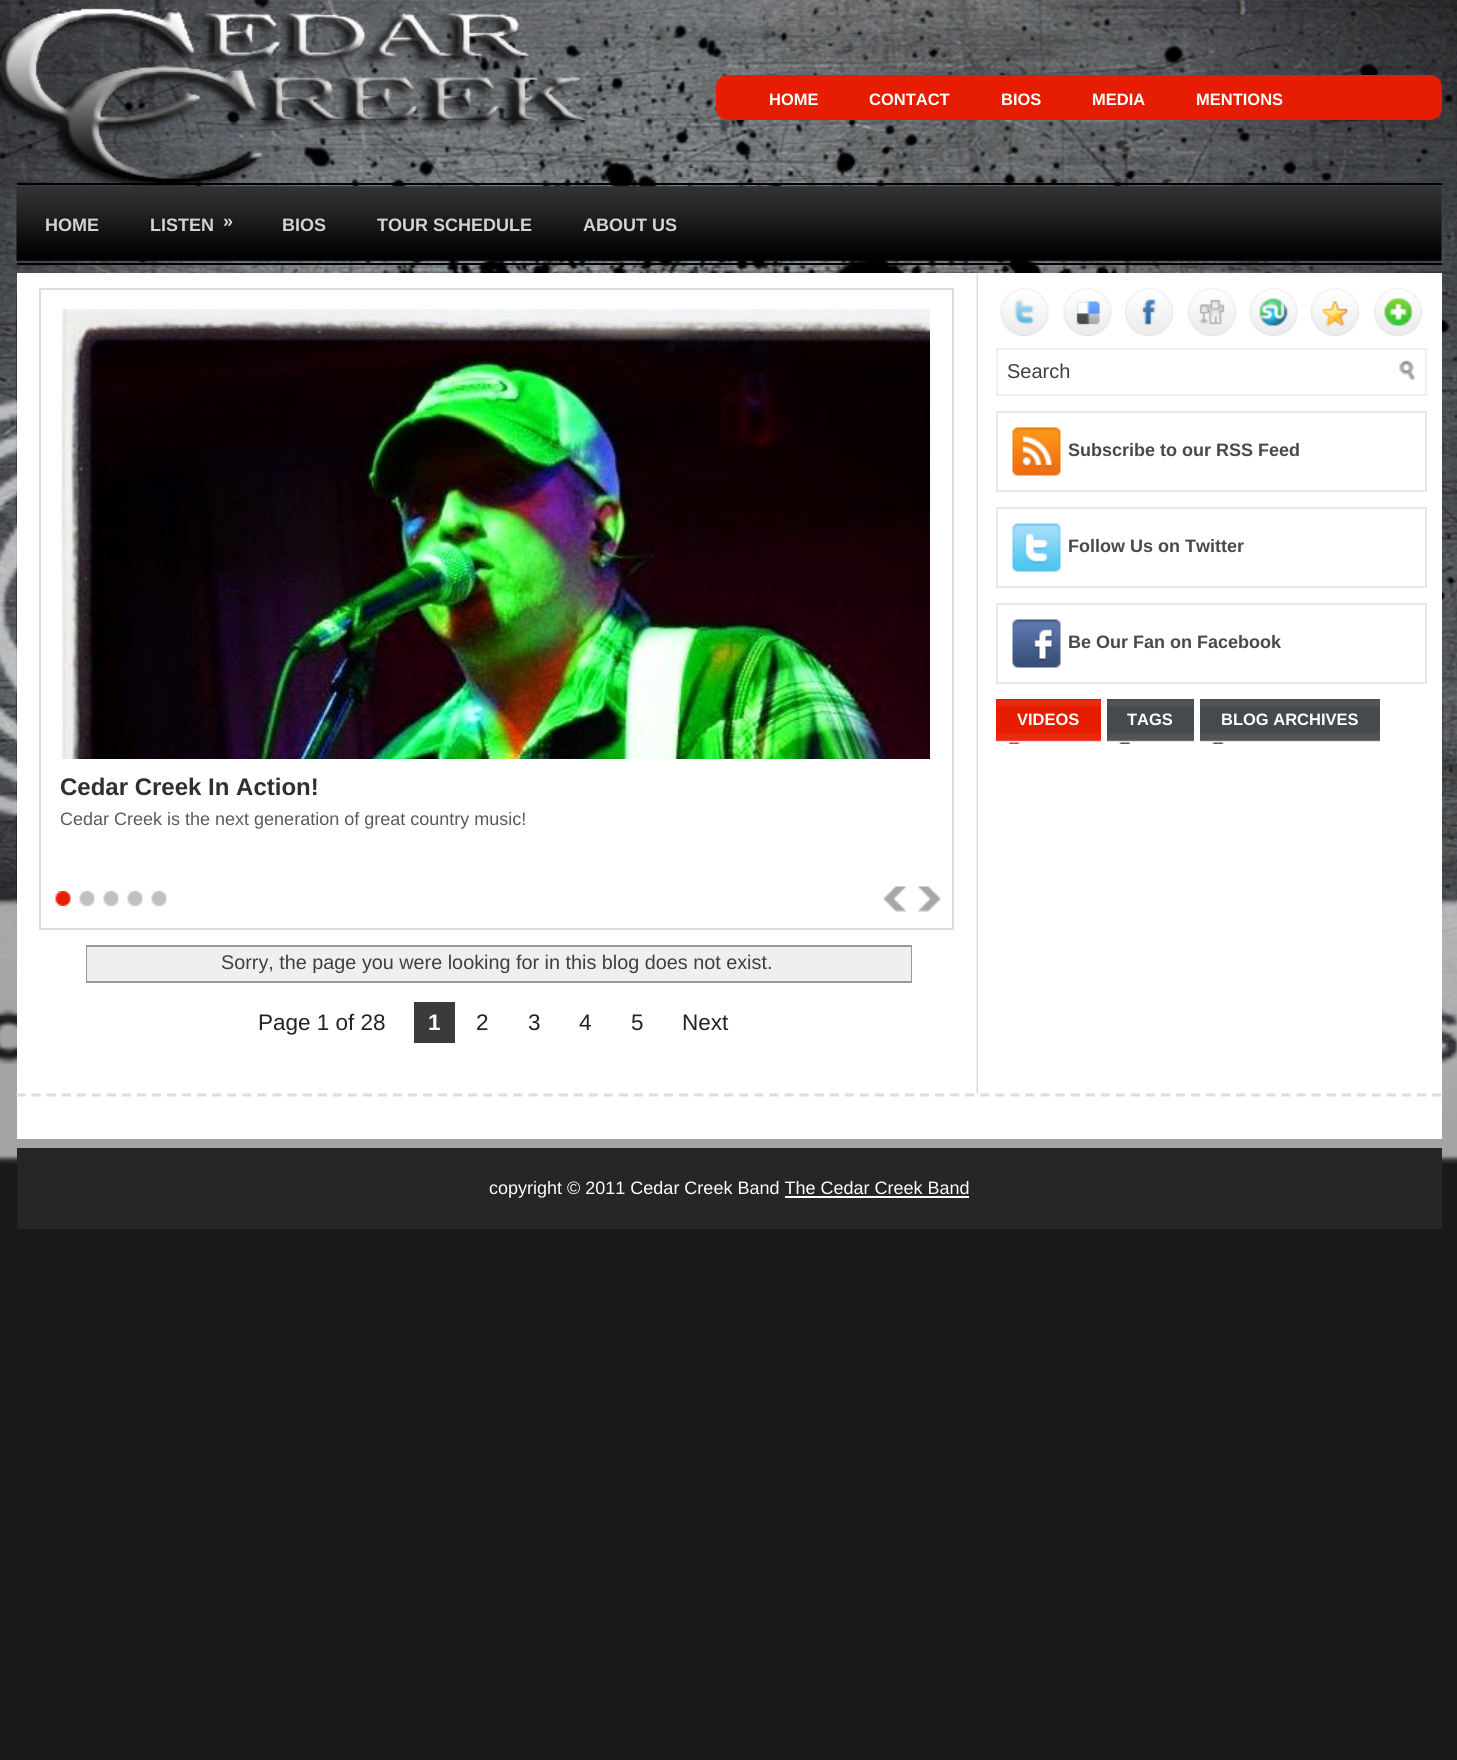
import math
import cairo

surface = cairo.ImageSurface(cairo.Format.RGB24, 1457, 1760)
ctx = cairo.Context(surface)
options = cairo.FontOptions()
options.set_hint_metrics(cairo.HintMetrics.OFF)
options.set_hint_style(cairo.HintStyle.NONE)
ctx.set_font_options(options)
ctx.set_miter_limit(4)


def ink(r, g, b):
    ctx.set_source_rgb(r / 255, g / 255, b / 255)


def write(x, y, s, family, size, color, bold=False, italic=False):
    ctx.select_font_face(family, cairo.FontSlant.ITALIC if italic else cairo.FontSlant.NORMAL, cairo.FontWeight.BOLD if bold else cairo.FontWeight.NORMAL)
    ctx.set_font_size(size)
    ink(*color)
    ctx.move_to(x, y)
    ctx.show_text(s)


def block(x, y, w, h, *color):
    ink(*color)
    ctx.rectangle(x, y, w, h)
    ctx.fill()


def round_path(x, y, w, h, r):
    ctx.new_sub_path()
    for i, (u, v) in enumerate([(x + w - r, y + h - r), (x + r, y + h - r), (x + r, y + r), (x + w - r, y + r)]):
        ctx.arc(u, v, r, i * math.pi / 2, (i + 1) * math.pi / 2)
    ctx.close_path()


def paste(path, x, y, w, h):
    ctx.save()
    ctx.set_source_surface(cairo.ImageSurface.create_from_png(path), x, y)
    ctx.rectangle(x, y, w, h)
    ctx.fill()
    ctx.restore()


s1 = dict(family="Liberation Sans", size=16.5, color=(255, 255, 255), bold=True)
s2 = dict(family="Liberation Sans", size=18, color=(207, 211, 212), bold=True)
s3 = dict(family="Liberation Sans", size=20, color=(63, 63, 63))
s4 = dict(family="Liberation Sans", size=18, color=(70, 74, 77), bold=True)
s5 = dict(family="Liberation Sans", size=24, color=(47, 48, 48), bold=True)
s6 = dict(family="Liberation Sans", size=18, color=(87, 91, 94))
s7 = dict(family="Liberation Sans", size=19.8, color=(63, 63, 63))
s8 = dict(family="Liberation Sans", size=22.5, color=(35, 35, 35))
s9 = dict(family="Liberation Sans", size=22.5, color=(255, 255, 255), bold=True)
s10 = dict(family="Liberation Sans", size=18, color=(255, 255, 255))

ink(25, 25, 27)
ctx.paint()
paste("pic1.png", 0, 0, 1457, 1164)
ink(230, 29, 2)
round_path(716, 75, 726, 45, 12)
ctx.fill()
write(769, 105, "HOME", **s1)
write(869, 105, "CONTACT", **s1)
write(1001, 105, "BIOS", **s1)
write(1092, 105, "MEDIA", **s1)
write(1196, 105, "MENTIONS", **s1)
paste("pic2.png", 16, 185, 1426, 77)
block(17, 183, 1425, 2, 0, 0, 0)
block(17, 263, 1425, 2, 0, 0, 0)
write(45, 231, "HOME", **s2)
write(150, 231, "LISTEN", **s2)
write(223, 227, "»", **s2)
write(282, 231, "BIOS", **s2)
write(377, 231, "TOUR SCHEDULE", **s2)
write(583, 231, "ABOUT US", **s2)
block(17, 273, 1425, 866, 255, 255, 255)
paste("pic3.png", 976, 273, 2, 821)
paste("pic4.png", 1000, 288, 49, 48)
paste("pic5.png", 1063, 288, 49, 48)
paste("pic6.png", 1125, 288, 48, 48)
paste("pic7.png", 1188, 288, 48, 48)
paste("pic8.png", 1249, 288, 49, 48)
paste("pic9.png", 1311, 288, 48, 48)
paste("pic10.png", 1374, 288, 48, 48)
ctx.rectangle(997, 349, 429, 46)
ink(239, 239, 239)
ctx.stroke()
write(1007, 378, "Search", **s3)
paste("pic11.png", 1399, 360, 16, 21)
ctx.rectangle(997, 412, 429, 79)
ink(230, 233, 235)
ctx.stroke()
paste("pic12.png", 1012, 427, 49, 49)
write(1068, 456, "Subscribe to our RSS Feed", **s4)
ctx.rectangle(997, 508, 429, 79)
ink(230, 233, 235)
ctx.stroke()
paste("pic13.png", 1012, 523, 49, 49)
write(1068, 552, "Follow Us on Twitter", **s4)
ctx.rectangle(997, 604, 429, 79)
ink(230, 233, 235)
ctx.stroke()
paste("pic14.png", 1012, 619, 49, 49)
write(1068, 648, "Be Our Fan on Facebook", **s4)
paste("pic15.png", 996, 699, 105, 45)
write(1017, 725, "VIDEOS", **s1)
paste("pic16.png", 1107, 699, 87, 45)
write(1127, 725, "TAGS", **s1)
paste("pic17.png", 1200, 699, 180, 45)
write(1221, 725, "BLOG ARCHIVES", **s1)
ctx.rectangle(40, 289, 913, 640)
ink(221, 221, 221)
ctx.stroke()
paste("pic18.png", 60, 309, 870, 450)
write(60, 795, "Cedar Creek In Action!", **s5)
write(60, 825, "Cedar Creek is the next generation of great country music!", **s6)
paste("pic19.png", 55, 891, 16, 15)
paste("pic20.png", 79, 891, 16, 15)
paste("pic20.png", 103, 891, 16, 15)
paste("pic20.png", 127, 891, 16, 15)
paste("pic20.png", 151, 891, 16, 15)
paste("pic21.png", 883, 886, 23, 26)
paste("pic22.png", 918, 886, 23, 26)
ctx.rectangle(87, 946, 824, 36)
ink(153, 153, 153)
ctx.stroke()
block(87, 947, 824, 34, 239, 239, 239)
write(221, 969, "Sorry, the page you were looking for in this blog does not exist.", **s7)
write(258, 1030, "Page 1 of 28", **s8)
block(414, 1002, 41, 41, 58, 59, 61)
write(428, 1030, "1", **s9)
write(476, 1030, "2", **s8)
write(528, 1030, "3", **s8)
write(579, 1030, "4", **s8)
write(631, 1030, "5", **s8)
write(682, 1030, "Next", **s8)
ctx.new_path()
ctx.move_to(16.5, 1095)
ctx.line_to(1441.5, 1095)
ink(221, 221, 221)
ctx.set_line_width(3)
ctx.set_dash([9, 6.06])
ctx.stroke()
block(17, 1148, 1425, 81, 37, 38, 40)
write(489, 1194, "copyright © 2011 Cedar Creek Band The Cedar Creek Band", **s10)
block(785, 1196, 184, 2, 255, 255, 255)
surface.write_to_png("screenshot.png")
